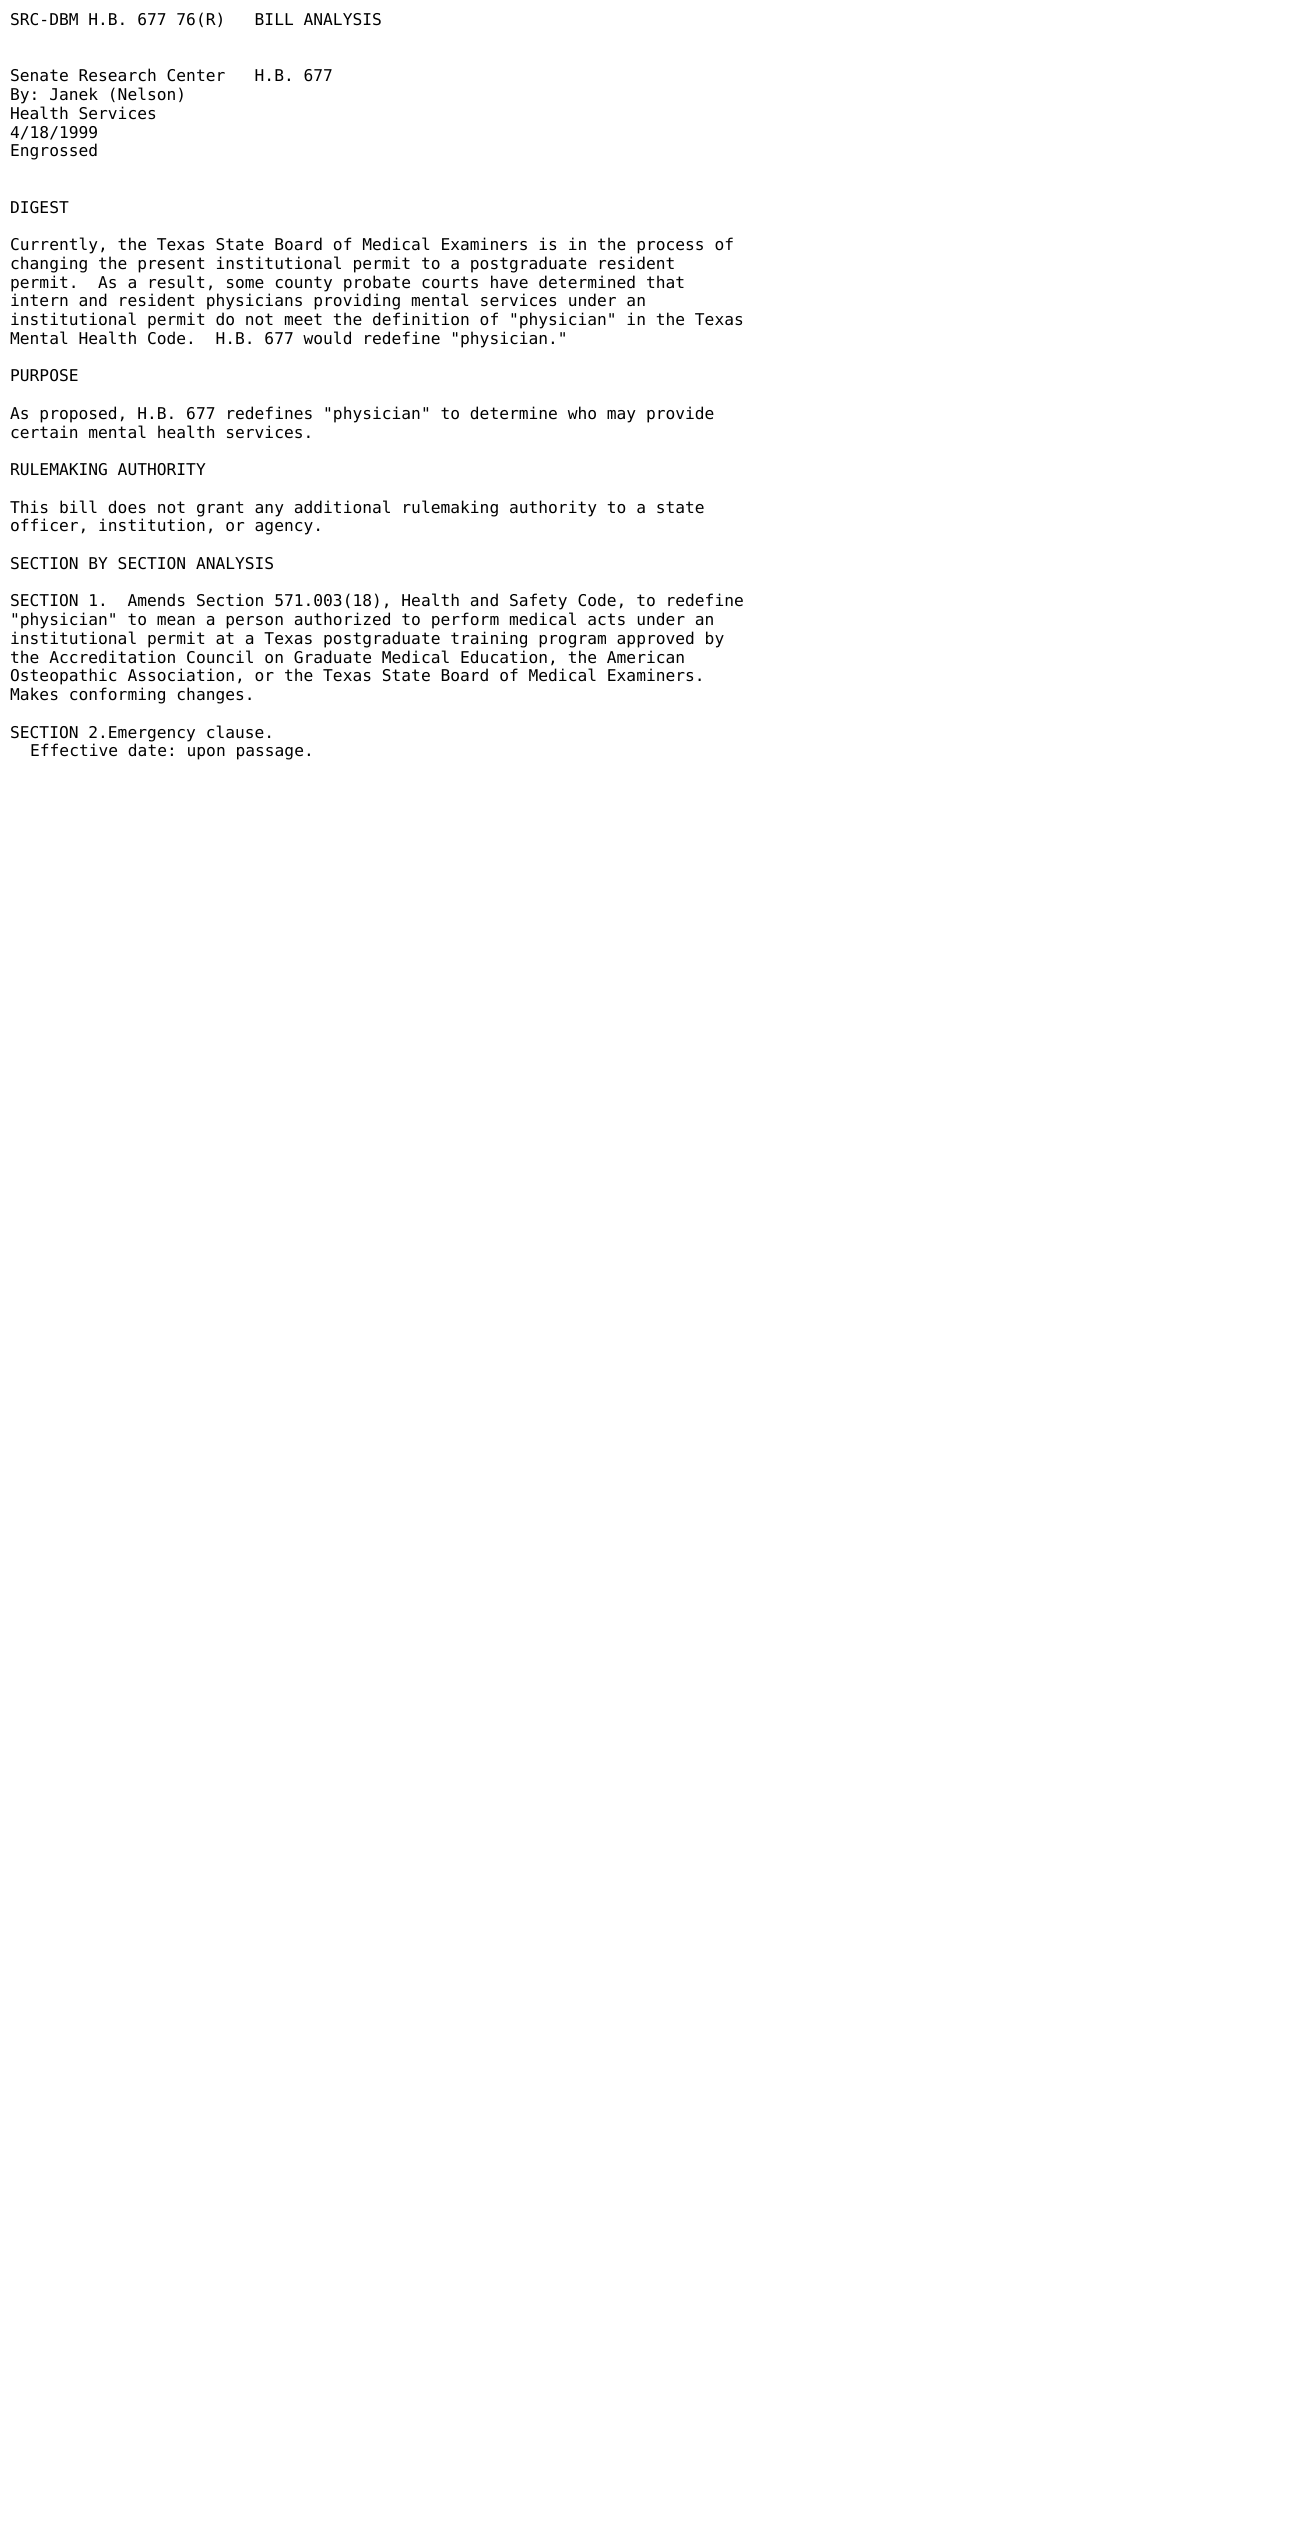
import math
import cairo

surface = cairo.ImageSurface(cairo.Format.RGB24, 1294, 2544)
ctx = cairo.Context(surface)
options = cairo.FontOptions()
options.set_hint_metrics(cairo.HintMetrics.OFF)
options.set_hint_style(cairo.HintStyle.NONE)
ctx.set_font_options(options)
ctx.set_miter_limit(4)


def ink(r, g, b):
    ctx.set_source_rgb(r / 255, g / 255, b / 255)


def write(x, y, s, family, size, color, bold=False, italic=False):
    ctx.select_font_face(family, cairo.FontSlant.ITALIC if italic else cairo.FontSlant.NORMAL, cairo.FontWeight.BOLD if bold else cairo.FontWeight.NORMAL)
    ctx.set_font_size(size)
    ink(*color)
    ctx.move_to(x, y)
    ctx.show_text(s)


s1 = dict(family="DejaVu Sans Mono", size=16.25, color=(0, 0, 0))

ink(255, 255, 255)
ctx.paint()
write(10, 25, "SRC-DBM H.B. 677 76(R)   BILL ANALYSIS", **s1)
write(10, 81, "Senate Research Center   H.B. 677", **s1)
write(10, 100, "By: Janek (Nelson)", **s1)
write(10, 119, "Health Services", **s1)
write(10, 138, "4/18/1999", **s1)
write(10, 156, "Engrossed", **s1)
write(10, 213, "DIGEST", **s1)
write(10, 250, "Currently, the Texas State Board of Medical Examiners is in the process of", **s1)
write(10, 269, "changing the present institutional permit to a postgraduate resident", **s1)
write(10, 288, "permit.  As a result, some county probate courts have determined that", **s1)
write(10, 306, "intern and resident physicians providing mental services under an", **s1)
write(10, 325, "institutional permit do not meet the definition of \"physician\" in the Texas", **s1)
write(10, 344, "Mental Health Code.  H.B. 677 would redefine \"physician.\"", **s1)
write(10, 381, "PURPOSE", **s1)
write(10, 419, "As proposed, H.B. 677 redefines \"physician\" to determine who may provide", **s1)
write(10, 438, "certain mental health services.", **s1)
write(10, 475, "RULEMAKING AUTHORITY", **s1)
write(10, 513, "This bill does not grant any additional rulemaking authority to a state", **s1)
write(10, 531, "officer, institution, or agency.", **s1)
write(10, 569, "SECTION BY SECTION ANALYSIS", **s1)
write(10, 606, "SECTION 1.  Amends Section 571.003(18), Health and Safety Code, to redefine", **s1)
write(10, 625, "\"physician\" to mean a person authorized to perform medical acts under an", **s1)
write(10, 644, "institutional permit at a Texas postgraduate training program approved by", **s1)
write(10, 663, "the Accreditation Council on Graduate Medical Education, the American", **s1)
write(10, 681, "Osteopathic Association, or the Texas State Board of Medical Examiners.", **s1)
write(10, 700, "Makes conforming changes.", **s1)
write(10, 738, "SECTION 2.Emergency clause.", **s1)
write(30, 756, "Effective date: upon passage.", **s1)
surface.write_to_png("screenshot.png")
